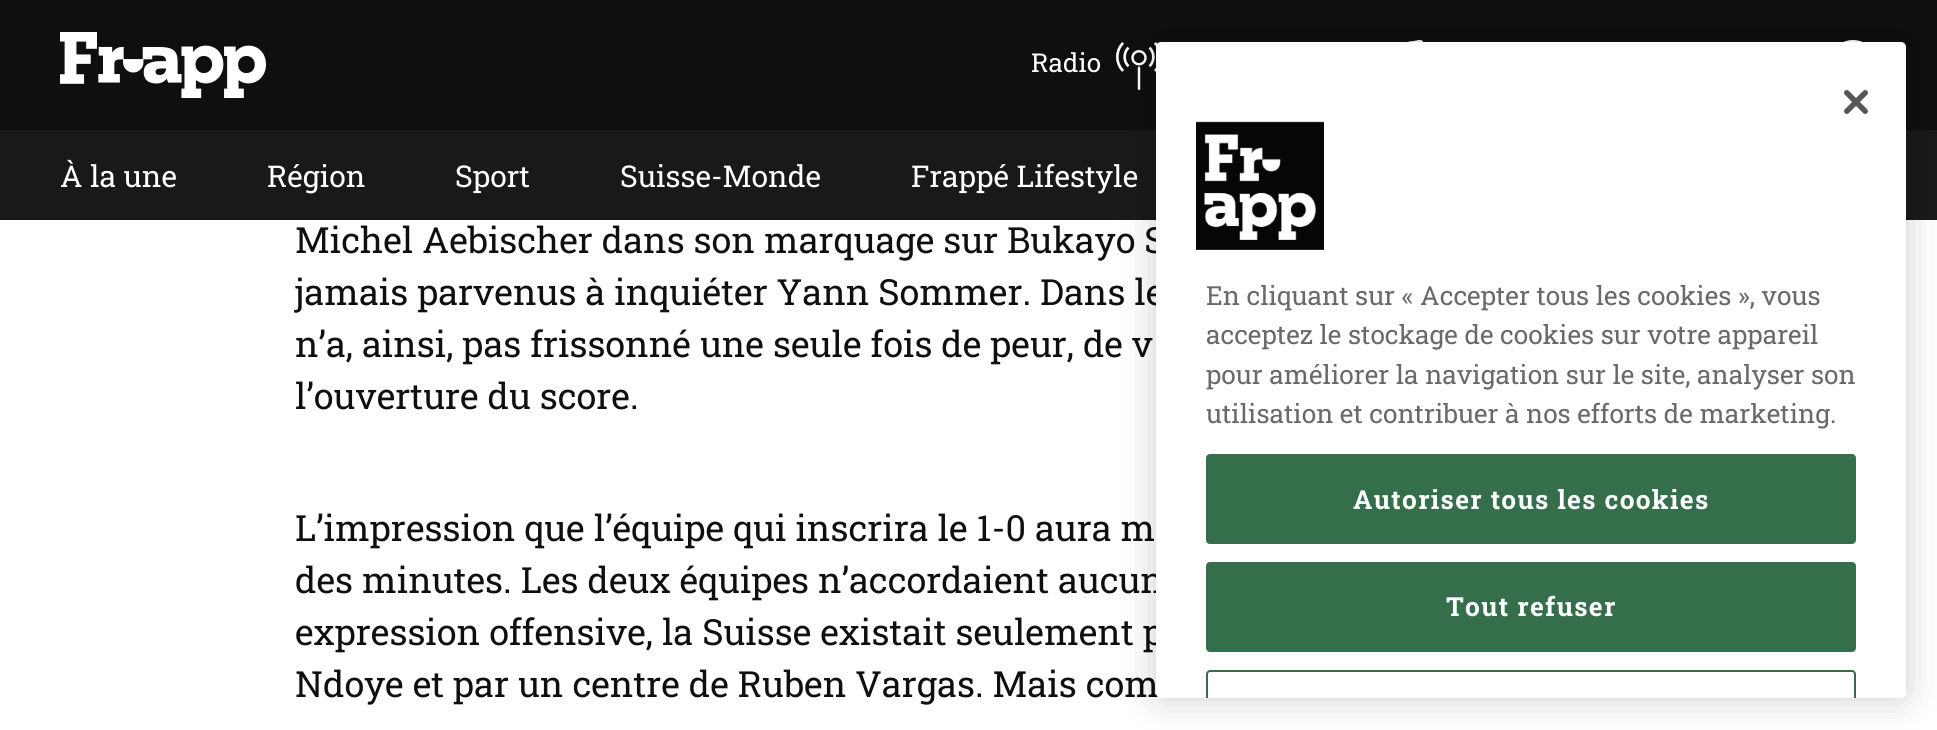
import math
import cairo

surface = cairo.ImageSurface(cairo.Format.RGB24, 1937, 730)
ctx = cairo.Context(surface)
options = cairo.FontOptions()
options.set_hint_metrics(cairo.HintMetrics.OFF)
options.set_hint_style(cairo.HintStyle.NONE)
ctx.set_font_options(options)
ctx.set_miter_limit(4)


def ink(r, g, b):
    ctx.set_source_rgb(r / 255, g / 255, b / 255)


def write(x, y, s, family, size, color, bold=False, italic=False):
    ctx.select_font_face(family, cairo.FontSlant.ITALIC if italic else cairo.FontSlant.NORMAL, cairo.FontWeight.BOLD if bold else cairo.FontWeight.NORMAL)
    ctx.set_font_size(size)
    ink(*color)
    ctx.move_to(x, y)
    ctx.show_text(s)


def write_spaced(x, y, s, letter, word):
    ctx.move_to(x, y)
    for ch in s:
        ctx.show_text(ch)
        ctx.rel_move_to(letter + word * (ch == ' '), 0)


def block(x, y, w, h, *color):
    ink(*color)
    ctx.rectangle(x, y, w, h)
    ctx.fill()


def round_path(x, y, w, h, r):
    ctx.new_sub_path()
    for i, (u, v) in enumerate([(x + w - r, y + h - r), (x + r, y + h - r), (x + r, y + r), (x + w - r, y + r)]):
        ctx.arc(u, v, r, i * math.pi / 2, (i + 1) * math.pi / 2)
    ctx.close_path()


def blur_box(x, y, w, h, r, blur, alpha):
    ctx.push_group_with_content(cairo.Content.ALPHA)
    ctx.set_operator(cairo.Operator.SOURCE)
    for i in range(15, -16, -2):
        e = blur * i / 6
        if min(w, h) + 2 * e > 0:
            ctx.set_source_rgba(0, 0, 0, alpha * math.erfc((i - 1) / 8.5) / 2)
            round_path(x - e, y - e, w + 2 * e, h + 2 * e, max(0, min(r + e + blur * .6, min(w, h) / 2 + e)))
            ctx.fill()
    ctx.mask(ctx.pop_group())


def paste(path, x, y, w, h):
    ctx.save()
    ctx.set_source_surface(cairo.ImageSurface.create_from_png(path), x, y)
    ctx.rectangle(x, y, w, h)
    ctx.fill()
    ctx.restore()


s1 = dict(family="Roboto Slab", size=26, color=(255, 255, 255))
s2 = dict(family="Roboto Slab", size=30, color=(255, 255, 255))
s3 = dict(family="Roboto Slab", size=36, color=(15, 15, 15))
s4 = dict(family="Roboto Slab", size=26.25, color=(105, 105, 105))

ink(255, 255, 255)
ctx.paint()
block(0, 0, 1937, 130, 15, 15, 15)
paste("pic1.png", 60, 32, 206, 66)
paste("pic2.png", 1407, 40, 16, 2)
paste("pic3.png", 1843, 40, 20, 2)
write(1031, 72, "Radio", **s1)
paste("pic4.png", 1116, 42, 42, 48)
block(0, 130, 1937, 90, 25, 25, 25)
write(60, 187, "À la une", **s2)
write(267, 187, "Région", **s2)
write(455, 187, "Sport", **s2)
write(620, 187, "Suisse-Monde", **s2)
write(911, 187, "Frappé Lifestyle", **s2)
write(295, 253, "Michel Aebischer dans son marquage sur Bukayo S", **s3)
write(295, 305, "jamais parvenus à inquiéter Yann Sommer. Dans le", **s3)
write(295, 357, "n’a, ainsi, pas frissonné une seule fois de peur, de v", **s3)
write(295, 409, "l’ouverture du score.", **s3)
write(295, 541, "L’impression que l’équipe qui inscrira le 1-0 aura m", **s3)
write(295, 593, "des minutes. Les deux équipes n’accordaient aucun", **s3)
write(295, 645, "expression offensive, la Suisse existait seulement p", **s3)
write(295, 697, "Ndoye et par un centre de Ruben Vargas. Mais com", **s3)
ink(0, 0, 0)
blur_box(1156, 42, 750, 656, 5, 18, 0.2)
ink(255, 255, 255)
round_path(1156, 42, 750, 656, 5)
ctx.fill()
paste("pic5.png", 1844, 90, 24, 24)
paste("pic6.png", 1196, 121, 128, 129)
write(1206, 305, "En cliquant sur « Accepter tous les cookies », vous", **s4)
write(1206, 344, "acceptez le stockage de cookies sur votre appareil", **s4)
write(1206, 384, "pour améliorer la navigation sur le site, analyser son", **s4)
write(1206, 423, "utilisation et contribuer à nos efforts de marketing.", **s4)
ink(52, 110, 74)
round_path(1207, 455, 648, 88, 3)
ctx.fill_preserve()
ctx.stroke()
ctx.select_font_face("Roboto Slab", cairo.FontSlant.NORMAL, cairo.FontWeight.BOLD)
ink(255, 255, 255)
write_spaced(1353, 509, "Autoriser tous les cookies", 1.3, 0)
ink(52, 110, 74)
round_path(1207, 563, 648, 88, 3)
ctx.fill_preserve()
ctx.stroke()
ink(255, 255, 255)
write_spaced(1446, 616, "Tout refuser", 1.3, 0)
ink(52, 110, 74)
ctx.new_path()
ctx.move_to(1210, 670)
ctx.curve_to(1208, 670, 1206, 672, 1206, 674)
ctx.line_to(1206, 698)
ctx.line_to(1208, 698)
ctx.line_to(1208, 674)
ctx.curve_to(1208, 673, 1209, 672, 1210, 672)
ctx.line_to(1852, 672)
ctx.curve_to(1853, 672, 1854, 673, 1854, 674)
ctx.line_to(1854, 698)
ctx.line_to(1856, 698)
ctx.line_to(1856, 674)
ctx.curve_to(1856, 672, 1854, 670, 1852, 670)
ctx.close_path()
ctx.fill()
surface.write_to_png("screenshot.png")
